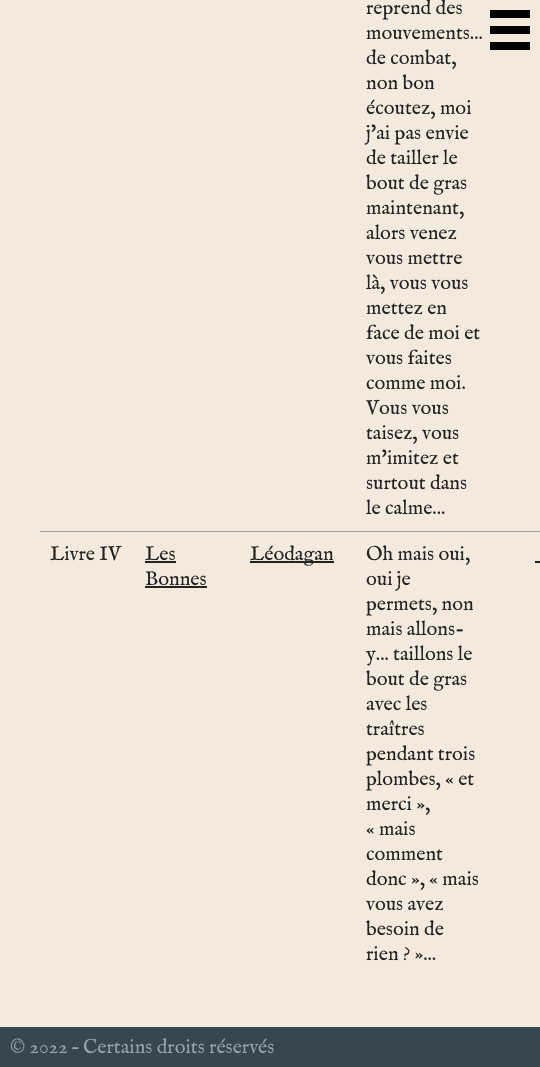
import math
import cairo

surface = cairo.ImageSurface(cairo.Format.RGB24, 540, 1067)
ctx = cairo.Context(surface)
options = cairo.FontOptions()
options.set_hint_metrics(cairo.HintMetrics.OFF)
options.set_hint_style(cairo.HintStyle.NONE)
ctx.set_font_options(options)
ctx.set_miter_limit(4)


def ink(r, g, b):
    ctx.set_source_rgb(r / 255, g / 255, b / 255)


def write(x, y, s, family, size, color, bold=False, italic=False):
    ctx.select_font_face(family, cairo.FontSlant.ITALIC if italic else cairo.FontSlant.NORMAL, cairo.FontWeight.BOLD if bold else cairo.FontWeight.NORMAL)
    ctx.set_font_size(size)
    ink(*color)
    ctx.move_to(x, y)
    ctx.show_text(s)


def block(x, y, w, h, *color):
    ink(*color)
    ctx.rectangle(x, y, w, h)
    ctx.fill()


s1 = dict(family="IM FELL English", size=20, color=(34, 34, 34))
s2 = dict(family="IM FELL English", size=20, color=(144, 164, 174))

ink(243, 234, 221)
ctx.paint()
block(40, 531, 500, 1, 144, 164, 174)
write(366, 14, "reprend des", **s1)
write(366, 39, "mouvements...", **s1)
write(366, 64, "de combat,", **s1)
write(366, 89, "non bon", **s1)
write(366, 114, "écoutez, moi", **s1)
write(366, 139, "j'ai pas envie", **s1)
write(366, 164, "de tailler le", **s1)
write(366, 189, "bout de gras", **s1)
write(366, 214, "maintenant,", **s1)
write(366, 239, "alors venez", **s1)
write(366, 264, "vous mettre", **s1)
write(366, 289, "là, vous vous", **s1)
write(366, 314, "mettez en", **s1)
write(366, 339, "face de moi et", **s1)
write(366, 364, "vous faites", **s1)
write(366, 389, "comme moi.", **s1)
write(366, 414, "Vous vous", **s1)
write(366, 439, "taisez, vous", **s1)
write(366, 464, "m'imitez et", **s1)
write(366, 489, "surtout dans", **s1)
write(366, 514, "le calme...", **s1)
write(50, 560, "Livre IV", **s1)
write(145, 560, "Les", **s1)
block(145, 561, 31, 2, 34, 34, 34)
write(145, 585, "Bonnes", **s1)
block(145, 586, 62, 2, 34, 34, 34)
block(250, 561, 84, 2, 34, 34, 34)
write(250, 560, "Léodagan", **s1)
write(366, 560, "Oh mais oui,", **s1)
write(366, 585, "oui je", **s1)
write(366, 610, "permets, non", **s1)
write(366, 635, "mais allons-", **s1)
write(366, 660, "y... taillons le", **s1)
write(366, 685, "bout de gras", **s1)
write(366, 710, "avec les", **s1)
write(366, 735, "traîtres", **s1)
write(366, 760, "pendant trois", **s1)
write(366, 785, "plombes, « et", **s1)
write(366, 810, "merci »,", **s1)
write(366, 835, "« mais", **s1)
write(366, 860, "comment", **s1)
write(366, 885, "donc », « mais", **s1)
write(366, 910, "vous avez", **s1)
write(366, 935, "besoin de", **s1)
write(366, 960, "rien ? »...", **s1)
block(535, 561, 5, 2, 34, 34, 34)
block(490, 10, 40, 8, 0, 0, 0)
block(490, 26, 40, 8, 0, 0, 0)
block(490, 42, 40, 8, 0, 0, 0)
block(0, 1027, 540, 40, 55, 71, 79)
write(10, 1053, "© 2022 – Certains droits réservés", **s2)
surface.write_to_png("screenshot.png")
